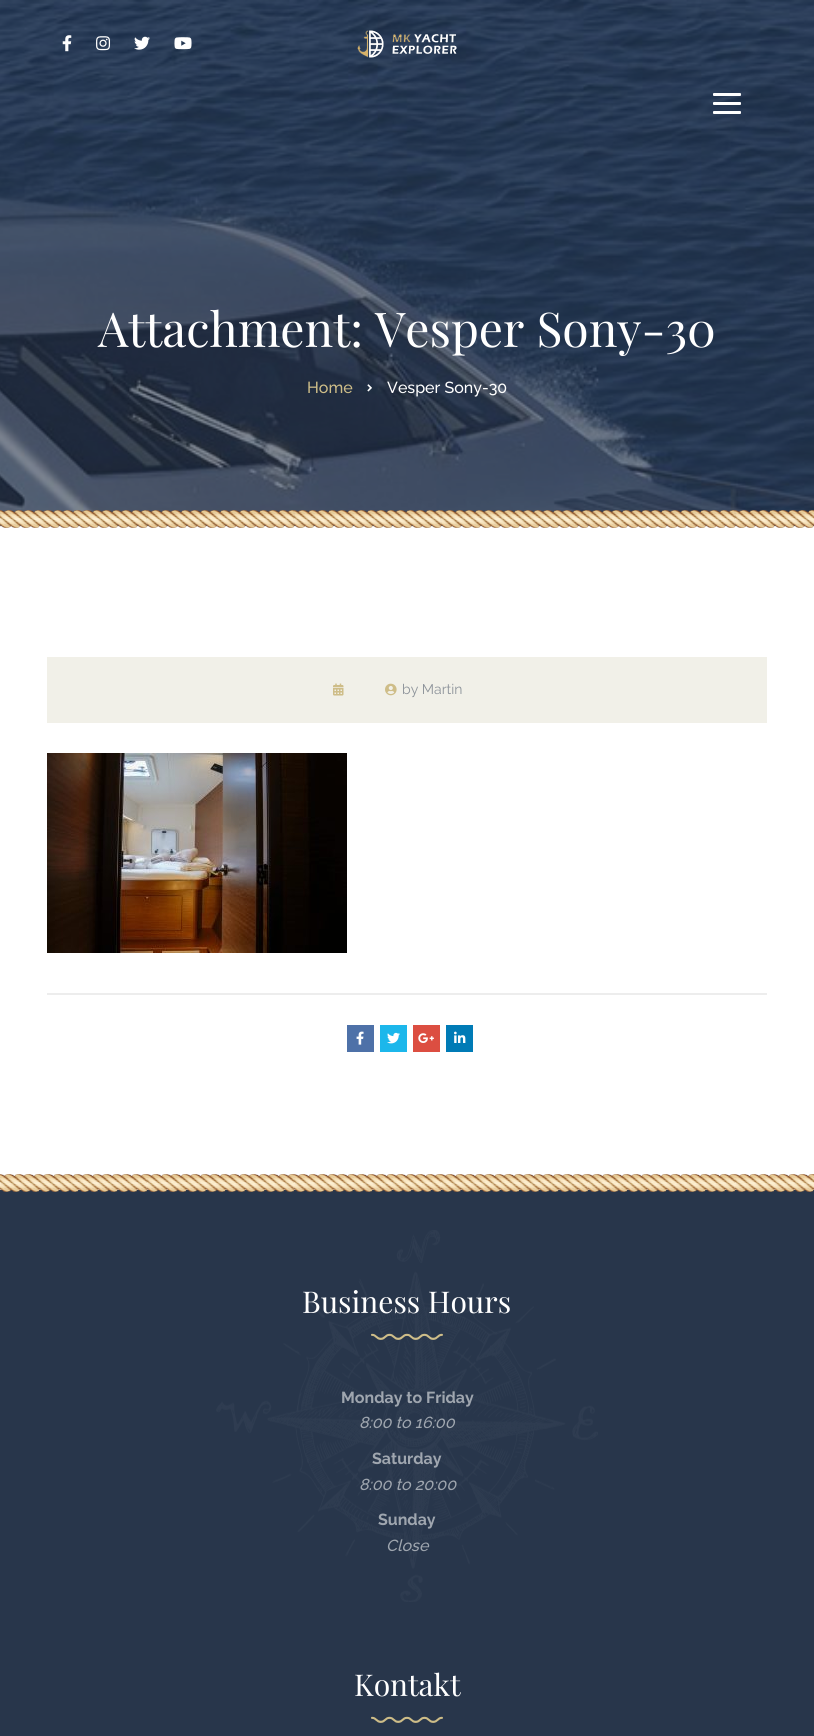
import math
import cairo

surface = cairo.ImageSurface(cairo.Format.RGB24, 814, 1736)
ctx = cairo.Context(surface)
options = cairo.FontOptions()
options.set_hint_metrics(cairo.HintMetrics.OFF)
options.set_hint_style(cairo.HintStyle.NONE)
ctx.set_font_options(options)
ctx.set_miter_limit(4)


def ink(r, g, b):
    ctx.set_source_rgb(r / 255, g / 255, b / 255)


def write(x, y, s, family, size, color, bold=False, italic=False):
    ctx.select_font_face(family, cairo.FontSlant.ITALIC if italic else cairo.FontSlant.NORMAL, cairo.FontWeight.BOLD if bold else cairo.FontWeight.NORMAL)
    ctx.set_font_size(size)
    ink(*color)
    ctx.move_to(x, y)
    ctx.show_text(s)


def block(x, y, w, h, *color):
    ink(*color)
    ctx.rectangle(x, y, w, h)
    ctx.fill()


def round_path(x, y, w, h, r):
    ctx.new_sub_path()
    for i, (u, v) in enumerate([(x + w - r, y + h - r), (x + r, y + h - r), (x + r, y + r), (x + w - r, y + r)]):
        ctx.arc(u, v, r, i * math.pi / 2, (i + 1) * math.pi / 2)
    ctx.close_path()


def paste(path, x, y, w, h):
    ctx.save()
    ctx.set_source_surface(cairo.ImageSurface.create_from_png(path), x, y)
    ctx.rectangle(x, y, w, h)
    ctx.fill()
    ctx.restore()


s1 = dict(family="Playfair Display", size=48, color=(255, 255, 255))
s2 = dict(family="Raleway Medium", size=16, color=(206, 189, 136))
s3 = dict(family="Raleway Medium", size=16, color=(255, 255, 255))
s4 = dict(family="Raleway", size=14, color=(141, 147, 154))
s5 = dict(family="Playfair Display", size=30, color=(255, 255, 255))
s6 = dict(family="Raleway", size=16, color=(158, 165, 174), bold=True)
s7 = dict(family="Raleway Medium", size=16, color=(158, 165, 174), italic=True)

ink(255, 255, 255)
ctx.paint()
paste("pic1.png", 0, 0, 814, 526)
paste("pic2.png", 62, 35, 10, 17)
paste("pic3.png", 96, 36, 15, 15)
paste("pic4.png", 134, 36, 16, 14)
paste("pic5.png", 174, 37, 18, 13)
paste("pic6.png", 357, 30, 100, 28)
ink(255, 255, 255)
round_path(713, 93, 28, 3, 1)
ctx.fill()
round_path(713, 102, 28, 3, 1)
ctx.fill()
round_path(713, 111, 28, 3, 1)
ctx.fill()
block(0, 526, 814, 1, 238, 238, 238)
write(98, 347, "Attachment: Vesper Sony-30", **s1)
write(307, 393, "Home", **s2)
paste("pic7.png", 367, 384, 5, 8)
write(387, 393, "Vesper Sony-30", **s3)
paste("pic8.png", 0, 510, 814, 18)
block(47, 657, 720, 66, 241, 240, 232)
paste("pic9.png", 333, 683, 11, 13)
paste("pic10.png", 385, 683, 12, 13)
write(402, 694, "by Martin", **s4)
block(47, 993, 720, 2, 237, 237, 237)
paste("pic11.png", 47, 753, 300, 200)
block(347, 1025, 27, 27, 78, 113, 168)
paste("pic12.png", 356, 1031, 8, 14)
block(380, 1025, 27, 27, 28, 183, 235)
paste("pic13.png", 387, 1032, 13, 12)
block(413, 1025, 27, 27, 220, 78, 65)
paste("pic14.png", 418, 1033, 16, 10)
block(446, 1025, 27, 27, 0, 123, 182)
paste("pic15.png", 454, 1031, 12, 12)
block(0, 1190, 814, 546, 40, 54, 75)
paste("pic16.png", 0, 1174, 814, 18)
write(302, 1313, "Business Hours", **s5)
paste("pic18.png", 371, 1333, 72, 7)
write(341, 1403, "Monday to Friday", **s6)
write(359, 1428, "8:00 to 16:00", **s7)
write(372, 1464, "Saturday", **s6)
write(359, 1490, "8:00 to 20:00", **s7)
write(378, 1525, "Sunday", **s6)
write(386, 1551, "Close", **s7)
paste("pic17.png", 216, 1230, 382, 372)
write(354, 1696, "Kontakt", **s5)
paste("pic18.png", 371, 1716, 72, 7)
surface.write_to_png("screenshot.png")
